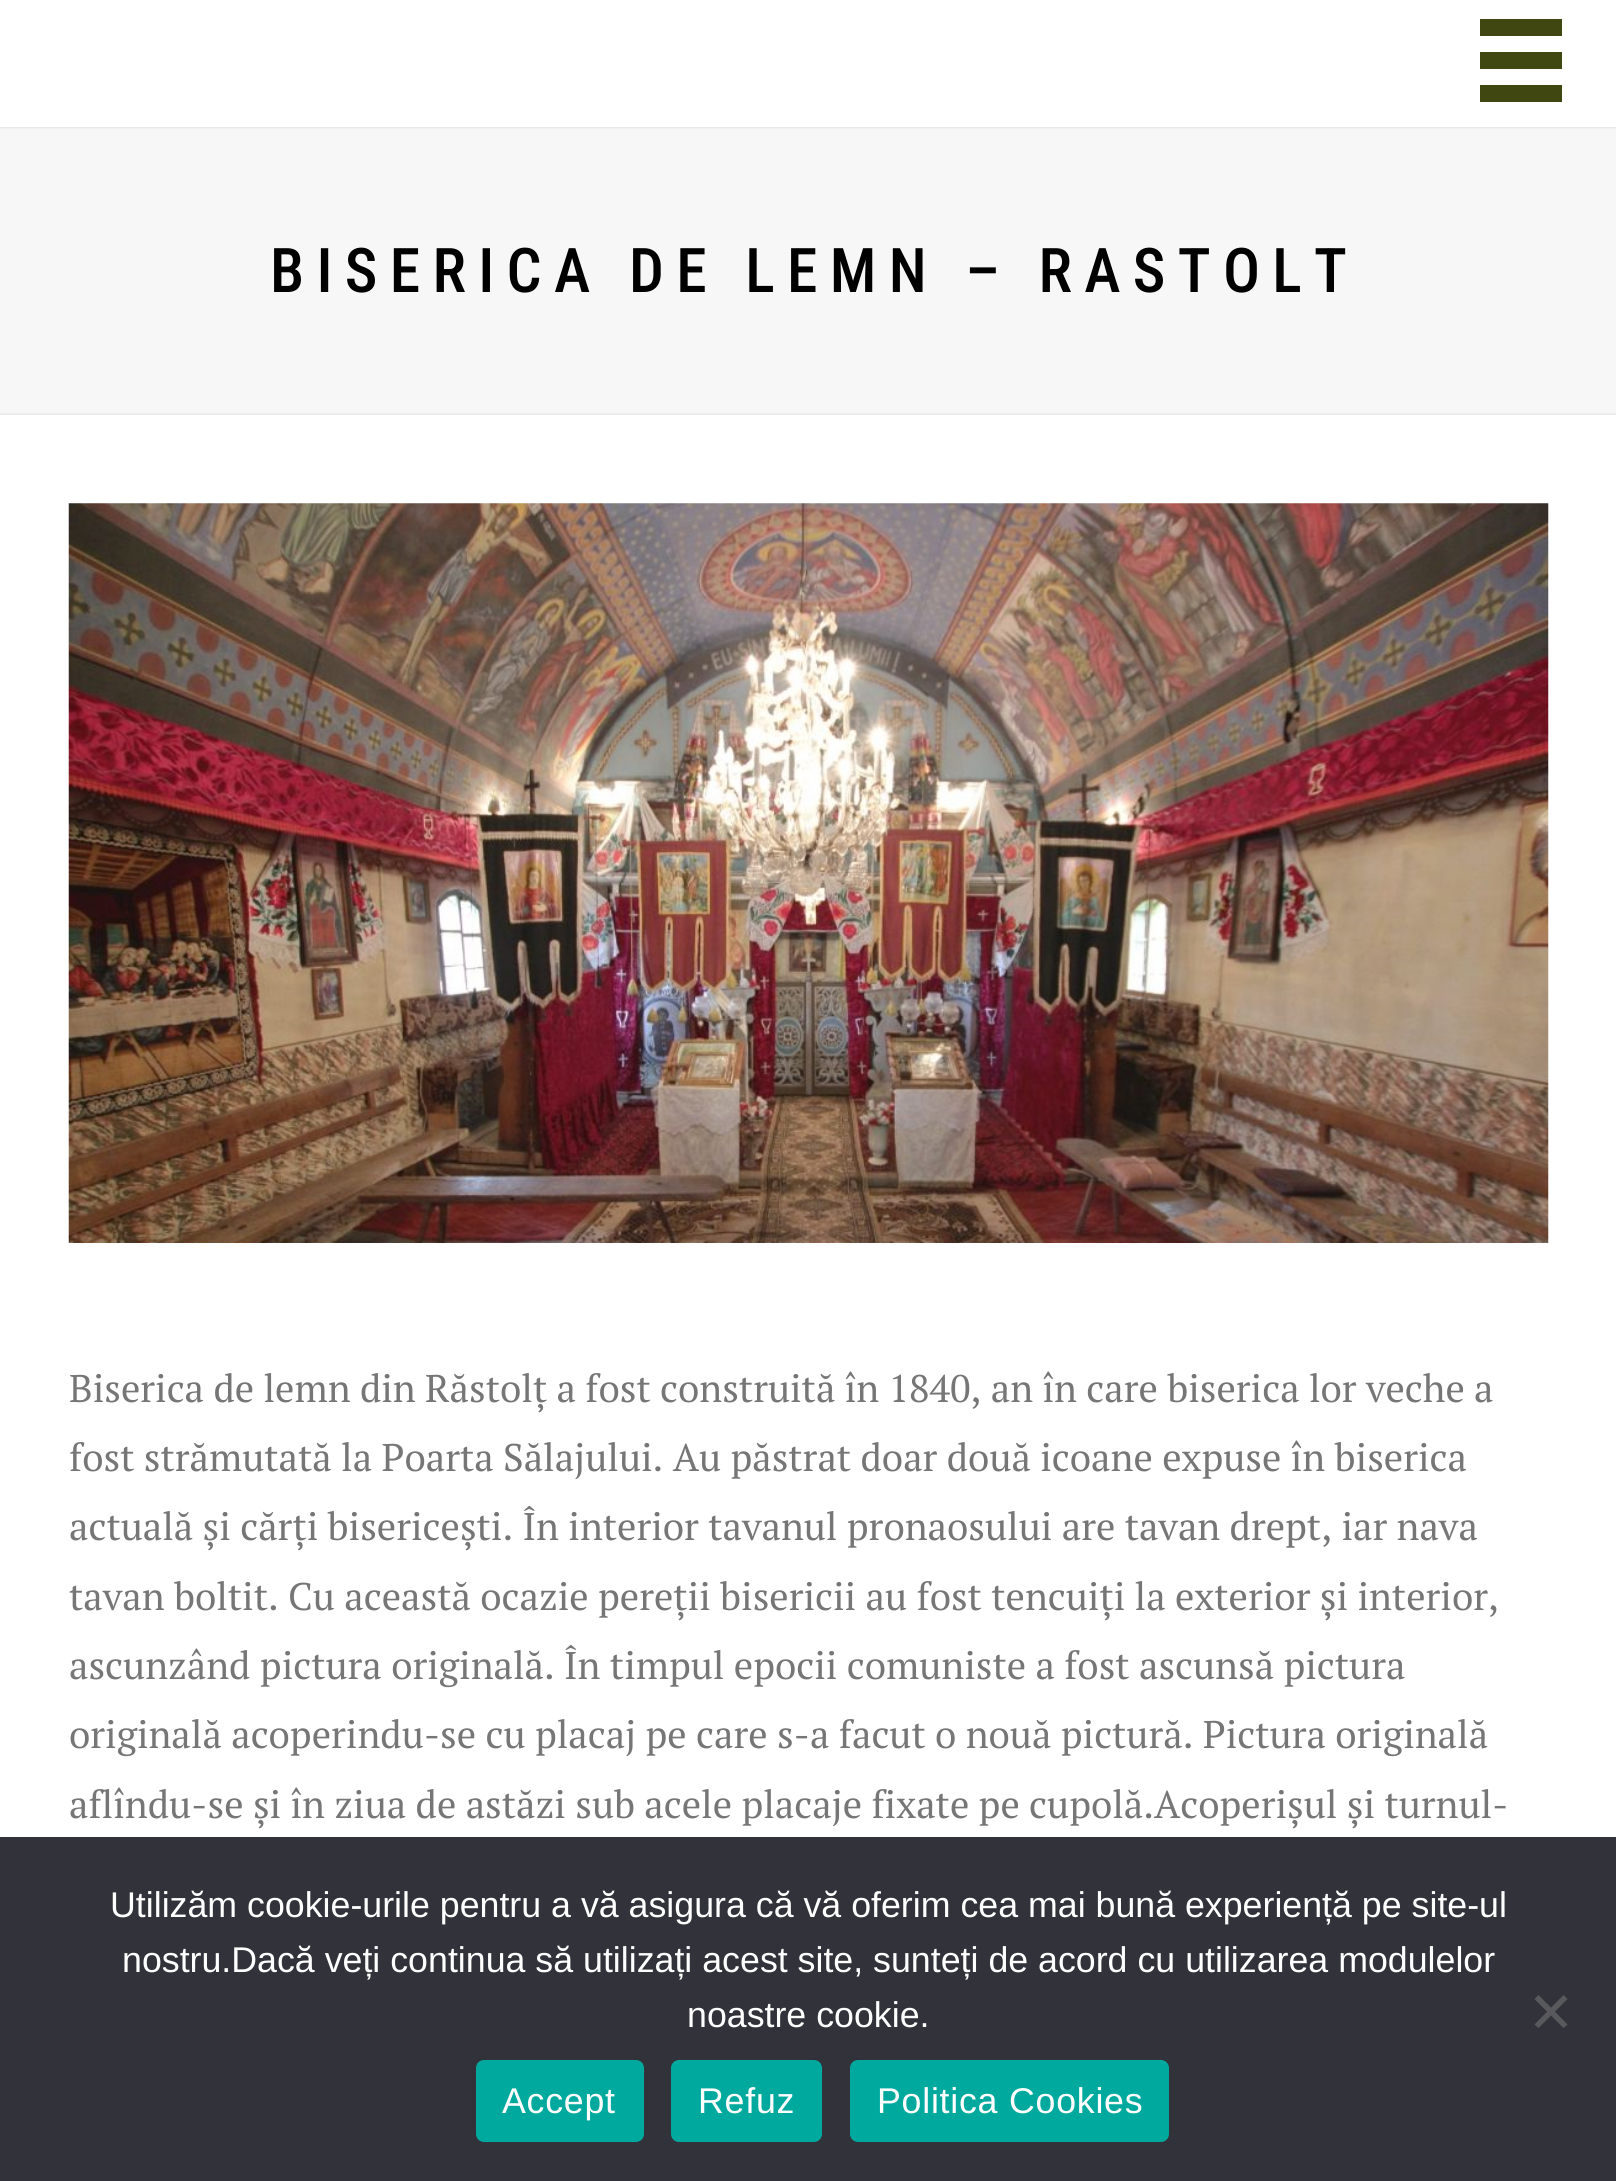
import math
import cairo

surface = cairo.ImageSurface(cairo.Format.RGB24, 1616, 2181)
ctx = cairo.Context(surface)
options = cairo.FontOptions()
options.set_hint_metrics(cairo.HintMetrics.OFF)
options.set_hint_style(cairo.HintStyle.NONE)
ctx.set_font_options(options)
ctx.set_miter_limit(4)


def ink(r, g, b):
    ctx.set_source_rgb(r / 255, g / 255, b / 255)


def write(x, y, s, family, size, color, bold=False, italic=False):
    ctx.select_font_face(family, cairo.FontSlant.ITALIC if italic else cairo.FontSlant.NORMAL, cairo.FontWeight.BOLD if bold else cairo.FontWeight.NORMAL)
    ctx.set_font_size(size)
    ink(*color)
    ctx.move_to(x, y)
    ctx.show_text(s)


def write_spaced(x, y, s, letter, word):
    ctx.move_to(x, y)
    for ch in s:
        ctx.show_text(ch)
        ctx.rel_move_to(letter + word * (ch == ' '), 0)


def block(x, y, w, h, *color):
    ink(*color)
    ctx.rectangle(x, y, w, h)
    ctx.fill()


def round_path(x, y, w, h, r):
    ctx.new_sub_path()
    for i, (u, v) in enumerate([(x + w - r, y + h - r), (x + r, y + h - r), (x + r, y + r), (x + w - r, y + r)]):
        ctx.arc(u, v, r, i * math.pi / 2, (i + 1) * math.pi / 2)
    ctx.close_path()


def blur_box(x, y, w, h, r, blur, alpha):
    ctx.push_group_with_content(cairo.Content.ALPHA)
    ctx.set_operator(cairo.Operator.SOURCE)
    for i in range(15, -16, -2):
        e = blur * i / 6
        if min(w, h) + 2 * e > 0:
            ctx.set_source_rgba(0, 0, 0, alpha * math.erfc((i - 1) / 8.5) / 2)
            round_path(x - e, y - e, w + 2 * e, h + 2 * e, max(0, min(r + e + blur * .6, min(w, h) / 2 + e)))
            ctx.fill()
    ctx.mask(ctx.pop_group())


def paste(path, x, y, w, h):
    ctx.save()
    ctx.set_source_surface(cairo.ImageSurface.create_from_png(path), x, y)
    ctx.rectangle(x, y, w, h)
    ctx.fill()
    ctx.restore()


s1 = dict(family="PT Serif", size=38.5, color=(118, 118, 118))
s2 = dict(family="Liberation Sans", size=35.75, color=(255, 255, 255))

ink(247, 247, 247)
ctx.paint()
ink(0, 0, 0)
blur_box(0, 0, 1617, 127, 0, 1.5, 0.15)
block(0, 0, 1616, 127, 255, 255, 255)
block(1480, 52, 82, 17, 64, 71, 17)
block(1480, 19, 82, 17, 64, 71, 17)
block(1480, 85, 82, 17, 64, 71, 17)
ctx.select_font_face("Roboto Condensed Medium")
ctx.set_font_size(61.6)
ink(0, 0, 0)
write_spaced(270, 292, "BISERICA DE LEMN – RASTOLT", 12.3, 0)
ink(0, 0, 0)
blur_box(0, 415, 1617, 1741, 0, 1.5, 0.15)
block(0, 415, 1616, 1422, 255, 255, 255)
paste("pic1.png", 68, 503, 1481, 740)
write(69, 1402, "Biserica de lemn din Răstolț a fost construită în 1840, an în care biserica lor veche a", **s1)
write(69, 1471, "fost strămutată la Poarta Sălajului. Au păstrat doar două icoane expuse în biserica", **s1)
write(69, 1540, "actuală și cărți bisericești. În interior tavanul pronaosului are tavan drept, iar nava", **s1)
write(69, 1610, "tavan boltit. Cu această ocazie pereții bisericii au fost tencuiți la exterior și interior,", **s1)
write(69, 1679, "ascunzând pictura originală. În timpul epocii comuniste a fost ascunsă pictura", **s1)
write(69, 1748, "originală acoperindu-se cu placaj pe care s-a facut o nouă pictură. Pictura originală", **s1)
write(69, 1818, "aflîndu-se și în ziua de astăzi sub acele placaje fixate pe cupolă.Acoperișul și turnul-", **s1)
block(0, 1837, 1616, 344, 50, 50, 58)
write(110, 1917, "Utilizăm cookie-urile pentru a vă asigura că vă oferim cea mai bună experiență pe site-ul", **s2)
write(122, 1972, "nostru.Dacă veți continua să utilizați acest site, sunteți de acord cu utilizarea modulelor", **s2)
write(687, 2027, "noastre cookie.", **s2)
ink(89, 89, 93)
ctx.new_path()
ctx.move_to(1563.5, 1995)
ctx.line_to(1567.5, 1999)
ctx.line_to(1538.5, 2028)
ctx.line_to(1534.5, 2024.5)
ctx.close_path()
ctx.fill()
ctx.new_path()
ctx.move_to(1534.5, 1999)
ctx.line_to(1538.5, 1995)
ctx.line_to(1567.5, 2024.5)
ctx.line_to(1563.5, 2028)
ctx.close_path()
ctx.fill()
ink(0, 169, 157)
round_path(476, 2060, 168, 82, 8)
ctx.fill()
ink(255, 255, 255)
write_spaced(502, 2113, "Accept", 0.75, 0)
ink(0, 169, 157)
round_path(671, 2060, 151, 82, 8)
ctx.fill()
ink(255, 255, 255)
write_spaced(698, 2113, "Refuz", 0.75, 0)
ink(0, 169, 157)
round_path(850, 2060, 319, 82, 8)
ctx.fill()
ink(255, 255, 255)
write_spaced(877, 2113, "Politica Cookies", 0.75, 0)
surface.write_to_png("screenshot.png")
